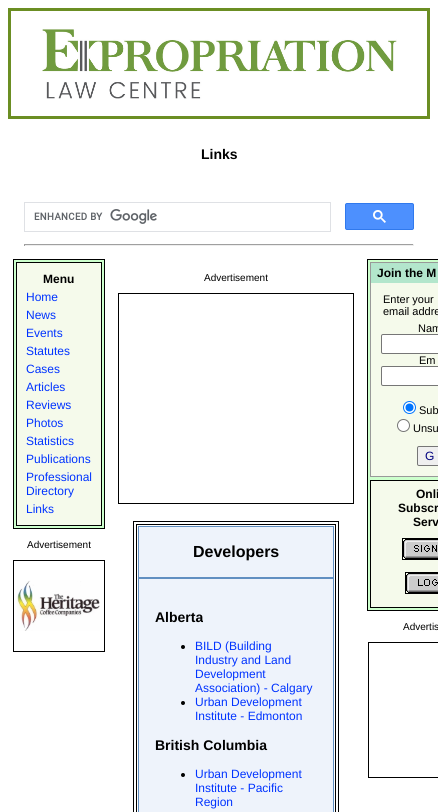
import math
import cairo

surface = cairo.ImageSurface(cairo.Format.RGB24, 438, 812)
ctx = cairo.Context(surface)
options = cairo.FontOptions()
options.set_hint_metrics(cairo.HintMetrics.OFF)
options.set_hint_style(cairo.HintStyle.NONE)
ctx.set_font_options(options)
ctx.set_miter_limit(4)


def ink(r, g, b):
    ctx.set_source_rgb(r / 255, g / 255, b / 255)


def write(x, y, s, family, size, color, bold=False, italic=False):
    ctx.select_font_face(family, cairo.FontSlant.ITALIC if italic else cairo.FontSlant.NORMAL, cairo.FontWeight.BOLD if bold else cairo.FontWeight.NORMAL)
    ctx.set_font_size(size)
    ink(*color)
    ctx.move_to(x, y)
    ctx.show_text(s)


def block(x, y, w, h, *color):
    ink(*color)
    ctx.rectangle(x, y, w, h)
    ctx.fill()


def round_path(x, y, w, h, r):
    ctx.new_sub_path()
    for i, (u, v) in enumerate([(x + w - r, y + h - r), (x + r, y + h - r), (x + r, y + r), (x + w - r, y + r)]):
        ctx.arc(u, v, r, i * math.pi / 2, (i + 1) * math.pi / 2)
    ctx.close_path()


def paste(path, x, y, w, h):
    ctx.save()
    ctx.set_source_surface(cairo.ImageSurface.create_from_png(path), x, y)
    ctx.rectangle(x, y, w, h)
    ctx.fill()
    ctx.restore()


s1 = dict(family="Liberation Sans", size=14, color=(0, 0, 0), bold=True)
s2 = dict(family="Liberation Sans", size=12, color=(0, 0, 0), bold=True)
s3 = dict(family="Liberation Sans", size=12, color=(0, 51, 255))
s4 = dict(family="Liberation Sans", size=10, color=(0, 0, 0))
s5 = dict(family="Liberation Sans", size=16, color=(0, 0, 0), bold=True)
s6 = dict(family="Liberation Sans", size=11, color=(0, 0, 0))
s7 = dict(family="Liberation Sans", size=12, color=(0, 0, 128))

ink(255, 255, 255)
ctx.paint()
ctx.rectangle(9.5, 9.5, 419, 108)
ink(107, 142, 35)
ctx.set_line_width(3)
ctx.stroke()
paste("pic1.png", 42, 29, 355, 70)
write(201, 159, "Links", **s1)
ctx.rectangle(24.5, 202.5, 306, 29)
ink(223, 225, 229)
ctx.set_line_width(1)
ctx.stroke()
paste("pic2.png", 34, 209, 123, 15)
ink(77, 144, 254)
round_path(345.5, 203.5, 68, 26, 1.5)
ctx.fill_preserve()
ink(48, 121, 237)
ctx.stroke()
paste("pic3.png", 373, 210, 13, 13)
block(24, 244, 390, 1, 159, 159, 159)
block(413, 244, 1, 2, 238, 238, 238)
block(24, 245, 390, 1, 238, 238, 238)
block(24, 244, 1, 2, 159, 159, 159)
ink(204, 255, 204)
ctx.rectangle(13.5, 259.5, 91, 269)
ctx.fill_preserve()
ink(0, 0, 0)
ctx.stroke()
ink(245, 250, 235)
ctx.rectangle(16.5, 262.5, 85, 263)
ctx.fill_preserve()
ink(0, 0, 0)
ctx.stroke()
write(43, 283, "Menu", **s2)
write(26, 301, "Home", **s3)
write(26, 319, "News", **s3)
write(26, 337, "Events", **s3)
write(26, 355, "Statutes", **s3)
write(26, 373, "Cases", **s3)
write(26, 391, "Articles", **s3)
write(26, 409, "Reviews", **s3)
write(26, 427, "Photos", **s3)
write(26, 445, "Statistics", **s3)
write(26, 463, "Publications", **s3)
write(26, 481, "Professional", **s3)
write(26, 495, "Directory", **s3)
write(26, 513, "Links", **s3)
write(27, 548, "Advertisement", **s4)
ctx.rectangle(13.5, 560.5, 91, 91)
ctx.stroke()
paste("pic4.png", 17, 580, 83, 51)
write(204, 281, "Advertisement", **s4)
ctx.rectangle(118.5, 293.5, 235, 210)
ctx.stroke()
ctx.rectangle(133.5, 521.5, 205, 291)
ctx.stroke()
ctx.rectangle(136.5, 524.5, 199, 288)
ctx.stroke()
ink(238, 243, 251)
ctx.rectangle(138.5, 526.5, 195, 51)
ctx.fill_preserve()
ink(97, 143, 193)
ctx.stroke()
write(193, 557, "Developers", **s5)
ink(238, 243, 251)
ctx.rectangle(138.5, 578.5, 195, 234)
ctx.fill_preserve()
ink(97, 143, 193)
ctx.stroke()
write(155, 622, "Alberta", **s1)
ctx.new_path()
ctx.arc(183, 647, 2, 0, 2 * math.pi)
ctx.fill()
write(195, 650, "BILD (Building", **s3)
write(195, 664, "Industry and Land", **s3)
write(195, 678, "Development", **s3)
write(195, 692, "Association) - Calgary", **s3)
ink(0, 0, 0)
ctx.new_path()
ctx.arc(183, 703, 2, 0, 2 * math.pi)
ctx.fill()
write(195, 706, "Urban Development", **s3)
write(195, 720, "Institute - Edmonton", **s3)
write(155, 750, "British Columbia", **s1)
ctx.new_path()
ctx.arc(183, 775, 2, 0, 2 * math.pi)
ctx.fill()
write(195, 778, "Urban Development", **s3)
write(195, 792, "Institute - Pacific", **s3)
write(195, 806, "Region", **s3)
ink(204, 255, 204)
ctx.rectangle(367.5, 259.5, 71, 351)
ctx.fill_preserve()
ink(0, 0, 0)
ctx.stroke()
block(371, 283, 67, 193, 245, 250, 235)
ctx.rectangle(370.5, 262.5, 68, 214)
ink(153, 153, 153)
ctx.stroke()
block(371, 263, 67, 20, 179, 230, 204)
write(377, 277, "Join the M", **s2)
write(383, 303, "Enter your", **s6)
write(383, 315, "email addre", **s6)
write(418, 332, "Nam", **s6)
ink(255, 255, 255)
round_path(381.5, 334.5, 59, 19, 1.5)
ctx.fill_preserve()
ink(118, 118, 118)
ctx.stroke()
write(419, 364, "Em", **s6)
ink(255, 255, 255)
round_path(381.5, 366.5, 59, 19, 1.5)
ctx.fill_preserve()
ink(118, 118, 118)
ctx.stroke()
ink(255, 255, 255)
ctx.arc(409.5, 407.5, 6, 0, 2 * math.pi)
ctx.fill_preserve()
ink(0, 117, 255)
ctx.stroke()
ctx.arc(409.5, 407.5, 4, 0, 2 * math.pi)
ctx.fill()
write(419, 414, "Sub", **s6)
ink(255, 255, 255)
ctx.new_path()
ctx.arc(403.5, 425.5, 6, 0, 2 * math.pi)
ctx.fill_preserve()
ink(118, 118, 118)
ctx.stroke()
write(413, 432, "Unsu", **s6)
ink(239, 239, 239)
round_path(417.5, 446.5, 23, 19, 1.5)
ctx.fill_preserve()
ink(118, 118, 118)
ctx.stroke()
write(425, 460, "G", **s7)
ink(245, 250, 235)
ctx.rectangle(370.5, 480.5, 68, 127)
ctx.fill_preserve()
ink(0, 0, 0)
ctx.stroke()
write(416, 498, "Onli", **s2)
write(398, 512, "Subscr", **s2)
write(413, 526, "Serv", **s2)
ctx.rectangle(402.5, 538.5, 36, 21)
ctx.stroke()
paste("pic5.png", 403, 539, 35, 20)
ctx.rectangle(405.5, 572.5, 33, 21)
ctx.stroke()
paste("pic6.png", 406, 573, 32, 20)
write(403, 630, "Advertis", **s4)
ctx.rectangle(368.5, 642.5, 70, 135)
ctx.stroke()
surface.write_to_png("screenshot.png")
